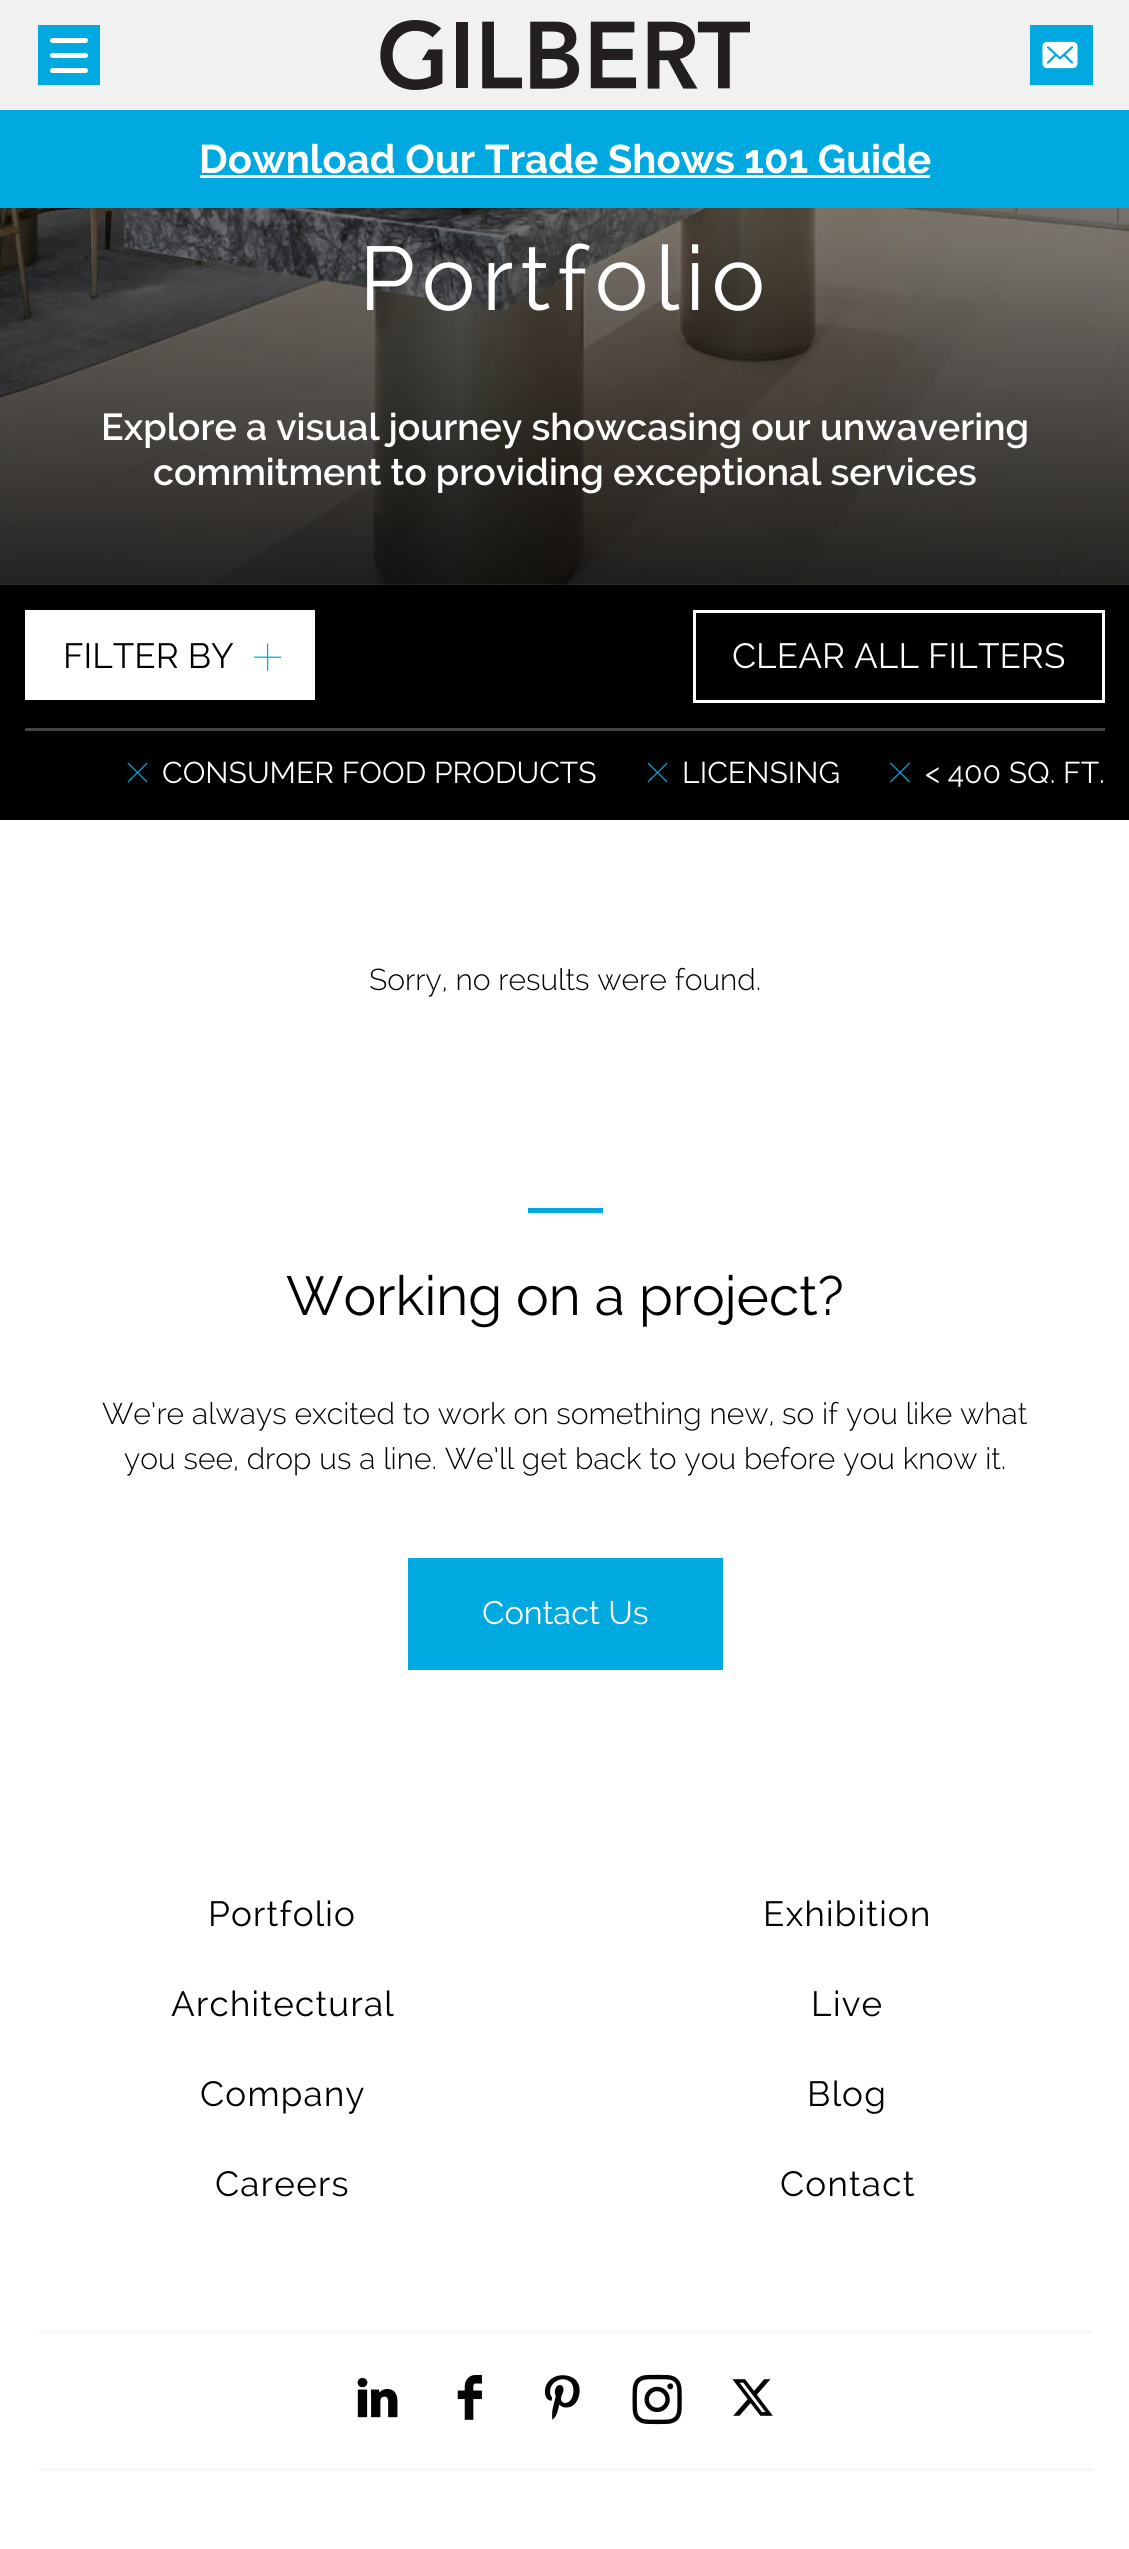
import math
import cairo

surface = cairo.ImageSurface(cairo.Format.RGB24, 1129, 2549)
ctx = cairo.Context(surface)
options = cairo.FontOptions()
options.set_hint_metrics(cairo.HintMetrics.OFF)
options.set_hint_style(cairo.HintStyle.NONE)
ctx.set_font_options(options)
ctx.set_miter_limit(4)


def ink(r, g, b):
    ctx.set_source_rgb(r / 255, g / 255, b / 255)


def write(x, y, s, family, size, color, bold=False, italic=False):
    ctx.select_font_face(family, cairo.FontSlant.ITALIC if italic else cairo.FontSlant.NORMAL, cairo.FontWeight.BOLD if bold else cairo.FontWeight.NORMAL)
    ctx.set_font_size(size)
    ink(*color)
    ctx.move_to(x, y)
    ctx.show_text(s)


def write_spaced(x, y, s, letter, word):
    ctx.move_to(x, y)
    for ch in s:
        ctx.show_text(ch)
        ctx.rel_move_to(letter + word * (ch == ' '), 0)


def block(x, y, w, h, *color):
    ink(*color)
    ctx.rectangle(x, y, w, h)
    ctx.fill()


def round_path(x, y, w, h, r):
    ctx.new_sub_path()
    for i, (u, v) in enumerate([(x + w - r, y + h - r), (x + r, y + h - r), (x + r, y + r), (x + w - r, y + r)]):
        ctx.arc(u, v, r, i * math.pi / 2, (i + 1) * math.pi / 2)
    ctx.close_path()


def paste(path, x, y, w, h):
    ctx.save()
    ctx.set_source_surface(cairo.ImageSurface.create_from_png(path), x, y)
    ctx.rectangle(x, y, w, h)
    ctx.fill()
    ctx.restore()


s1 = dict(family="Raleway", size=40, color=(255, 255, 255), bold=True)
s2 = dict(family="Raleway SemiBold", size=37.5, color=(255, 255, 255))
s3 = dict(family="Raleway", size=35, color=(0, 0, 0))
s4 = dict(family="Raleway", size=35, color=(255, 255, 255))
s5 = dict(family="Raleway", size=30, color=(255, 255, 255))
s6 = dict(family="Raleway Light", size=30, color=(0, 0, 0))
s7 = dict(family="Raleway", size=55, color=(0, 0, 0))
s8 = dict(family="Raleway", size=32.5, color=(255, 255, 255))

ink(255, 255, 255)
ctx.paint()
block(0, 0, 1129, 110, 241, 241, 241)
block(38, 25, 62, 60, 0, 169, 224)
ink(255, 255, 255)
round_path(50, 38, 38, 5, 2.5)
ctx.fill()
round_path(50, 53, 38, 5, 2.5)
ctx.fill()
round_path(50, 68, 38, 5, 2.5)
ctx.fill()
paste("pic1.png", 380, 20, 370, 70)
block(1030, 25, 63, 60, 0, 169, 224)
paste("pic2.png", 1042, 41, 36, 28)
block(0, 110, 1129, 98, 0, 169, 224)
write(199, 173, "Download Our Trade Shows 101 Guide", **s1)
block(200, 175, 730, 3, 255, 255, 255)
paste("pic3.png", 0, 208, 1129, 377)
gradient = cairo.LinearGradient(565, -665, 565, 585)
gradient.add_color_stop_rgba(0, 0, 0, 0, 0)
gradient.add_color_stop_rgba(0.25, 0, 0, 0, 0)
gradient.add_color_stop_rgba(0.5, 0, 0, 0, 0.01)
gradient.add_color_stop_rgba(0.75, 0, 0, 0, 0.4)
gradient.add_color_stop_rgba(1, 0, 0, 0, 0.79)
ctx.set_source(gradient)
ctx.rectangle(0, 208, 1129, 377)
ctx.fill()
ctx.select_font_face("Raleway")
ctx.set_font_size(90)
ink(255, 255, 255)
write_spaced(359, 310, "Portfolio", 6.75, 0)
write(101, 440, "Explore a visual journey showcasing our unwavering", **s2)
write(153, 485, "commitment to providing exceptional services", **s2)
block(0, 585, 1129, 235, 0, 0, 0)
block(25, 610, 290, 90, 255, 255, 255)
write(63, 668, "FILTER BY", **s3)
paste("pic4.png", 253, 643, 29, 28)
ctx.rectangle(694.5, 611.5, 409, 90)
ink(255, 255, 255)
ctx.set_line_width(3)
ctx.stroke()
write(732, 668, "CLEAR ALL FILTERS", **s4)
block(25, 728, 1080, 3, 69, 69, 69)
paste("pic5.png", 127, 762, 21, 21)
write(162, 783, "CONSUMER FOOD PRODUCTS", **s5)
paste("pic5.png", 647, 762, 21, 21)
write(682, 783, "LICENSING", **s5)
paste("pic6.png", 890, 762, 20, 21)
write(925, 783, "< 400 SQ. FT.", **s5)
write(369, 990, "Sorry, no results were found.", **s6)
block(528, 1208, 75, 5, 0, 169, 224)
write(286, 1315, "Working on a project?", **s7)
write(102, 1424, "We’re always excited to work on something new, so if you like what", **s6)
write(124, 1469, "you see, drop us a line. We’ll get back to you before you know it.", **s6)
block(408, 1558, 315, 112, 0, 169, 224)
write(482, 1624, "Contact Us", **s8)
ctx.set_font_size(35)
ink(0, 0, 0)
write_spaced(208, 1926, "Portfolio", 1.25, 0)
write_spaced(763, 1926, "Exhibition", 1.25, 0)
write_spaced(171, 2016, "Architectural", 1.25, 0)
write_spaced(811, 2016, "Live", 1.25, 0)
write_spaced(200, 2106, "Company", 1.25, 0)
write_spaced(807, 2106, "Blog", 1.25, 0)
write_spaced(215, 2196, "Careers", 1.25, 0)
write_spaced(780, 2196, "Contact", 1.25, 0)
block(38, 2330, 1055, 3, 248, 248, 248)
block(38, 2468, 1055, 3, 248, 248, 248)
paste("pic7.png", 357, 2378, 41, 40)
paste("pic8.png", 457, 2375, 25, 45)
paste("pic9.png", 544, 2375, 36, 45)
paste("pic10.png", 632, 2374, 50, 51)
paste("pic11.png", 732, 2379, 41, 37)
surface.write_to_png("screenshot.png")
